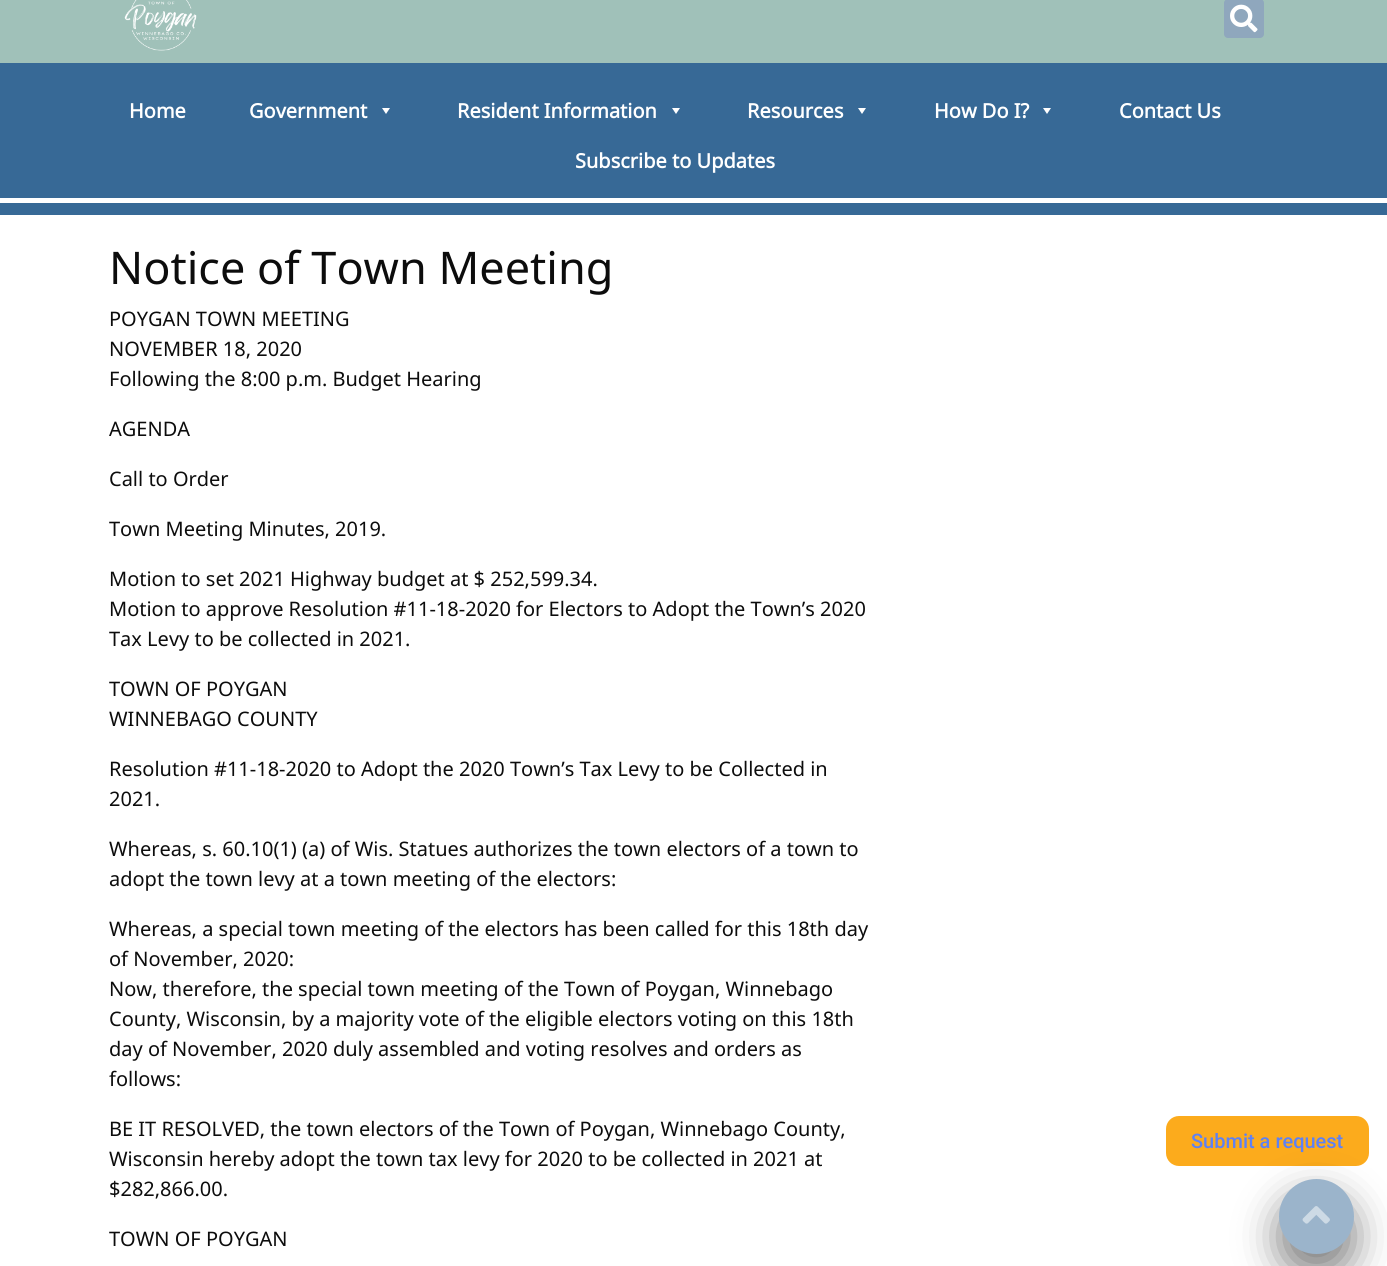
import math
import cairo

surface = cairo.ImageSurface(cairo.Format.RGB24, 1387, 1266)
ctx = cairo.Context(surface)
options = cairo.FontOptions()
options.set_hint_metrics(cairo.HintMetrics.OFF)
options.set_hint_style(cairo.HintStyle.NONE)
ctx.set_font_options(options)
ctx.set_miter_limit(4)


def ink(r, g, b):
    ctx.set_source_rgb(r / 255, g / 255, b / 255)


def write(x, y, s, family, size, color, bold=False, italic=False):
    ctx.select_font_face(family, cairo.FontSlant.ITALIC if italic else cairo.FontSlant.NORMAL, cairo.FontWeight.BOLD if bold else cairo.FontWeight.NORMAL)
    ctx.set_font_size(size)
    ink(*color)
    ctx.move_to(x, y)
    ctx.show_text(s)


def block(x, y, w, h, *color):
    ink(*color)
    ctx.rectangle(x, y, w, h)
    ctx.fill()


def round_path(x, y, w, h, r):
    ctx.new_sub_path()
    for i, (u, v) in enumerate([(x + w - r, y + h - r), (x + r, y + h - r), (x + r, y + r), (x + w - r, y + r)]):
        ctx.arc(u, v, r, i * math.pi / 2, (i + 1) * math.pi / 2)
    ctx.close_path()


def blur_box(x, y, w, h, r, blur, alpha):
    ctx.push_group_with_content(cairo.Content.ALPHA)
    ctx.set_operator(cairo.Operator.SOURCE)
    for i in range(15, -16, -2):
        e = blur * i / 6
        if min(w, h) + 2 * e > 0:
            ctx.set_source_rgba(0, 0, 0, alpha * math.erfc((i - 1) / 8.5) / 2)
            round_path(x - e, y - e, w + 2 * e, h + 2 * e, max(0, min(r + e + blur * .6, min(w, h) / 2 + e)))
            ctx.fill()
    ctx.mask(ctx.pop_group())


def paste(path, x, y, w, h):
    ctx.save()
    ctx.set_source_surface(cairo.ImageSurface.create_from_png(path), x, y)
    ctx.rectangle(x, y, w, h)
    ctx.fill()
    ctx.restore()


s1 = dict(family="Noto Sans", size=20, color=(255, 255, 255), bold=True)
s2 = dict(family="Noto Sans", size=45, color=(12, 12, 12))
s3 = dict(family="Noto Sans", size=20, color=(12, 12, 12))
s4 = dict(family="Roboto Medium", size=20, color=(94, 129, 244))

ink(255, 255, 255)
ctx.paint()
block(0, 63, 1387, 152, 55, 105, 150)
block(0, 0, 1387, 63, 160, 193, 185)
paste("pic1.png", 124, 0, 73, 51)
ink(143, 167, 189)
round_path(1224, -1, 40, 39, 4)
ctx.fill()
paste("pic2.png", 1230, 4, 28, 29)
write(129, 118, "Home", **s1)
write(249, 118, "Government", **s1)
ctx.new_path()
ctx.move_to(390, 108)
ctx.line_to(386, 114)
ctx.line_to(382, 108)
ctx.close_path()
ctx.fill()
write(457, 118, "Resident Information", **s1)
ctx.new_path()
ctx.move_to(680, 108)
ctx.line_to(676, 114)
ctx.line_to(672, 108)
ctx.close_path()
ctx.fill()
write(747, 118, "Resources", **s1)
ctx.new_path()
ctx.move_to(866, 108)
ctx.line_to(862, 114)
ctx.line_to(858, 108)
ctx.close_path()
ctx.fill()
write(934, 118, "How Do I?", **s1)
ctx.new_path()
ctx.move_to(1051, 108)
ctx.line_to(1047, 114)
ctx.line_to(1043, 108)
ctx.close_path()
ctx.fill()
write(1119, 118, "Contact Us", **s1)
write(575, 168, "Subscribe to Updates", **s1)
block(0, 198, 1387, 5, 255, 255, 255)
write(109, 284, "Notice of Town Meeting", **s2)
write(109, 326, "POYGAN TOWN MEETING", **s3)
write(109, 356, "NOVEMBER 18, 2020", **s3)
write(109, 386, "Following the 8:00 p.m. Budget Hearing", **s3)
write(109, 436, "AGENDA", **s3)
write(109, 486, "Call to Order", **s3)
write(109, 536, "Town Meeting Minutes, 2019.", **s3)
write(109, 586, "Motion to set 2021 Highway budget at $ 252,599.34.", **s3)
write(109, 616, "Motion to approve Resolution #11-18-2020 for Electors to Adopt the Town’s 2020", **s3)
write(109, 646, "Tax Levy to be collected in 2021.", **s3)
write(109, 696, "TOWN OF POYGAN", **s3)
write(109, 726, "WINNEBAGO COUNTY", **s3)
write(109, 776, "Resolution #11-18-2020 to Adopt the 2020 Town’s Tax Levy to be Collected in", **s3)
write(109, 806, "2021.", **s3)
write(109, 856, "Whereas, s. 60.10(1) (a) of Wis. Statues authorizes the town electors of a town to", **s3)
write(109, 886, "adopt the town levy at a town meeting of the electors:", **s3)
write(109, 936, "Whereas, a special town meeting of the electors has been called for this 18th day", **s3)
write(109, 966, "of November, 2020:", **s3)
write(109, 996, "Now, therefore, the special town meeting of the Town of Poygan, Winnebago", **s3)
write(109, 1026, "County, Wisconsin, by a majority vote of the eligible electors voting on this 18th", **s3)
write(109, 1056, "day of November, 2020 duly assembled and voting resolves and orders as", **s3)
write(109, 1086, "follows:", **s3)
write(109, 1136, "BE IT RESOLVED, the town electors of the Town of Poygan, Winnebago County,", **s3)
write(109, 1166, "Wisconsin hereby adopt the town tax levy for 2020 to be collected in 2021 at", **s3)
write(109, 1196, "$282,866.00.", **s3)
write(109, 1246, "TOWN OF POYGAN", **s3)
ink(252, 171, 28)
round_path(1166, 1116, 203, 50, 13)
ctx.fill()
write(1191, 1148, "Submit a request", **s4)
ink(0, 0, 0)
blur_box(1279, 1199, 75, 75, 37.5, 20, 0.5)
ink(155, 180, 203)
ctx.arc(1316.5, 1216.5, 37.5, 0, 2 * math.pi)
ctx.fill()
paste("pic3.png", 1302, 1206, 28, 18)
surface.write_to_png("screenshot.png")
